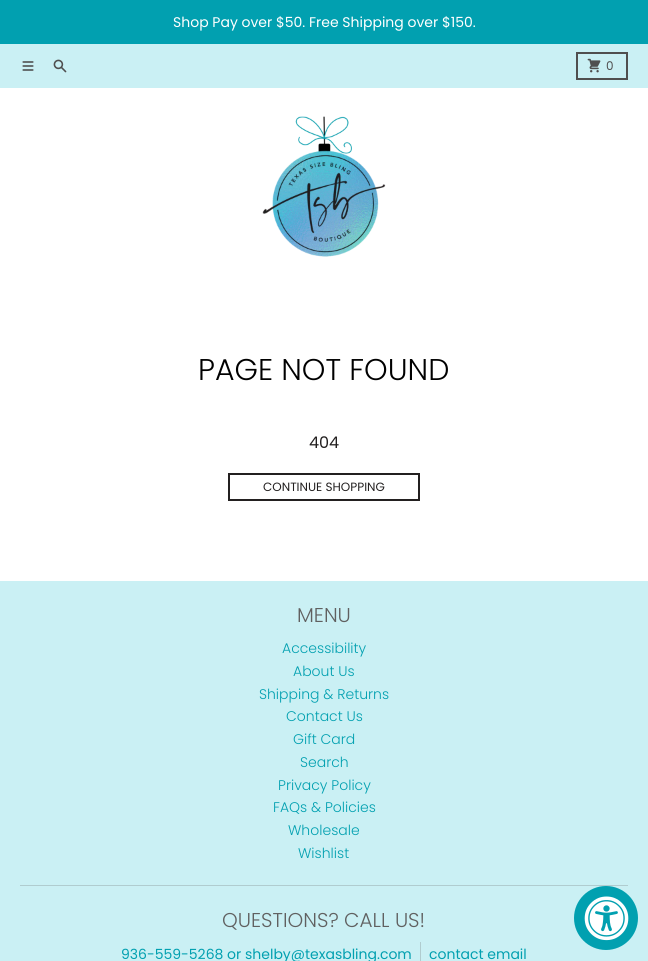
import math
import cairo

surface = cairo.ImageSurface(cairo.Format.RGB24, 648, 961)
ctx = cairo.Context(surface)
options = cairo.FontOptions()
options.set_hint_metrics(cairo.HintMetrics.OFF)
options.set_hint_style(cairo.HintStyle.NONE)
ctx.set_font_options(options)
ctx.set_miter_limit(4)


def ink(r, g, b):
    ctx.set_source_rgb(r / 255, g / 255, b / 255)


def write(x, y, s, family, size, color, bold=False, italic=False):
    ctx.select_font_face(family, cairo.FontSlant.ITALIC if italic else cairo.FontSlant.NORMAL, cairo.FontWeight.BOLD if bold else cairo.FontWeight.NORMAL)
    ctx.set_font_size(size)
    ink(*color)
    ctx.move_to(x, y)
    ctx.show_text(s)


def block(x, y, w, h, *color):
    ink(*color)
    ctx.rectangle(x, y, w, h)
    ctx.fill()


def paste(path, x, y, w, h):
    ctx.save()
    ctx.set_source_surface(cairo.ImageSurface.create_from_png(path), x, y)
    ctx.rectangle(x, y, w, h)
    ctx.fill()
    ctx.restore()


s1 = dict(family="Poppins", size=14, color=(255, 255, 255))
s2 = dict(family="Poppins", size=12, color=(79, 79, 79))
s3 = dict(family="Poppins Light", size=30, color=(0, 0, 0))
s4 = dict(family="Poppins", size=16, color=(35, 32, 32))
s5 = dict(family="Poppins", size=12, color=(35, 32, 32))
s6 = dict(family="Poppins Light", size=20, color=(96, 96, 96))
s7 = dict(family="Poppins Light", size=14, color=(1, 160, 176))
s8 = dict(family="Poppins", size=14, color=(1, 160, 176))

ink(202, 240, 244)
ctx.paint()
block(0, 0, 648, 44, 1, 160, 176)
write(173, 27, "Shop Pay over $50. Free Shipping over $150.", **s1)
paste("pic1.png", 22, 61, 12, 10)
paste("pic2.png", 53, 59, 14, 14)
ctx.rectangle(577, 53, 50, 26)
ink(79, 79, 79)
ctx.stroke()
paste("pic3.png", 587, 58, 14, 15)
write(606, 70, "0", **s2)
block(0, 88, 648, 493, 255, 255, 255)
paste("pic4.png", 262, 116, 124, 141)
write(198, 380, "PAGE NOT FOUND", **s3)
write(309, 448, "404", **s4)
ctx.rectangle(229, 474, 190, 26)
ctx.stroke()
write(263, 491, "CONTINUE SHOPPING", **s5)
write(297, 622, "MENU", **s6)
write(282, 653, "Accessibility", **s7)
write(293, 676, "About Us", **s7)
write(259, 699, "Shipping & Returns", **s7)
write(286, 721, "Contact Us", **s7)
write(293, 744, "Gift Card", **s7)
write(300, 767, "Search", **s7)
write(278, 790, "Privacy Policy", **s7)
write(273, 812, "FAQs & Policies", **s7)
write(288, 835, "Wholesale", **s7)
write(298, 858, "Wishlist", **s7)
block(20, 885, 608, 1, 176, 204, 207)
write(222, 927, "QUESTIONS? CALL US!", **s6)
write(121, 959, "936-559-5268 or shelby@texasbling.com", **s8)
block(420, 942, 1, 19, 176, 204, 207)
write(429, 959, "contact email", **s8)
ctx.new_path()
ctx.arc(606, 918, 32, 0, 2 * math.pi)
ctx.fill()
paste("pic5.png", 584, 896, 45, 45)
surface.write_to_png("screenshot.png")
